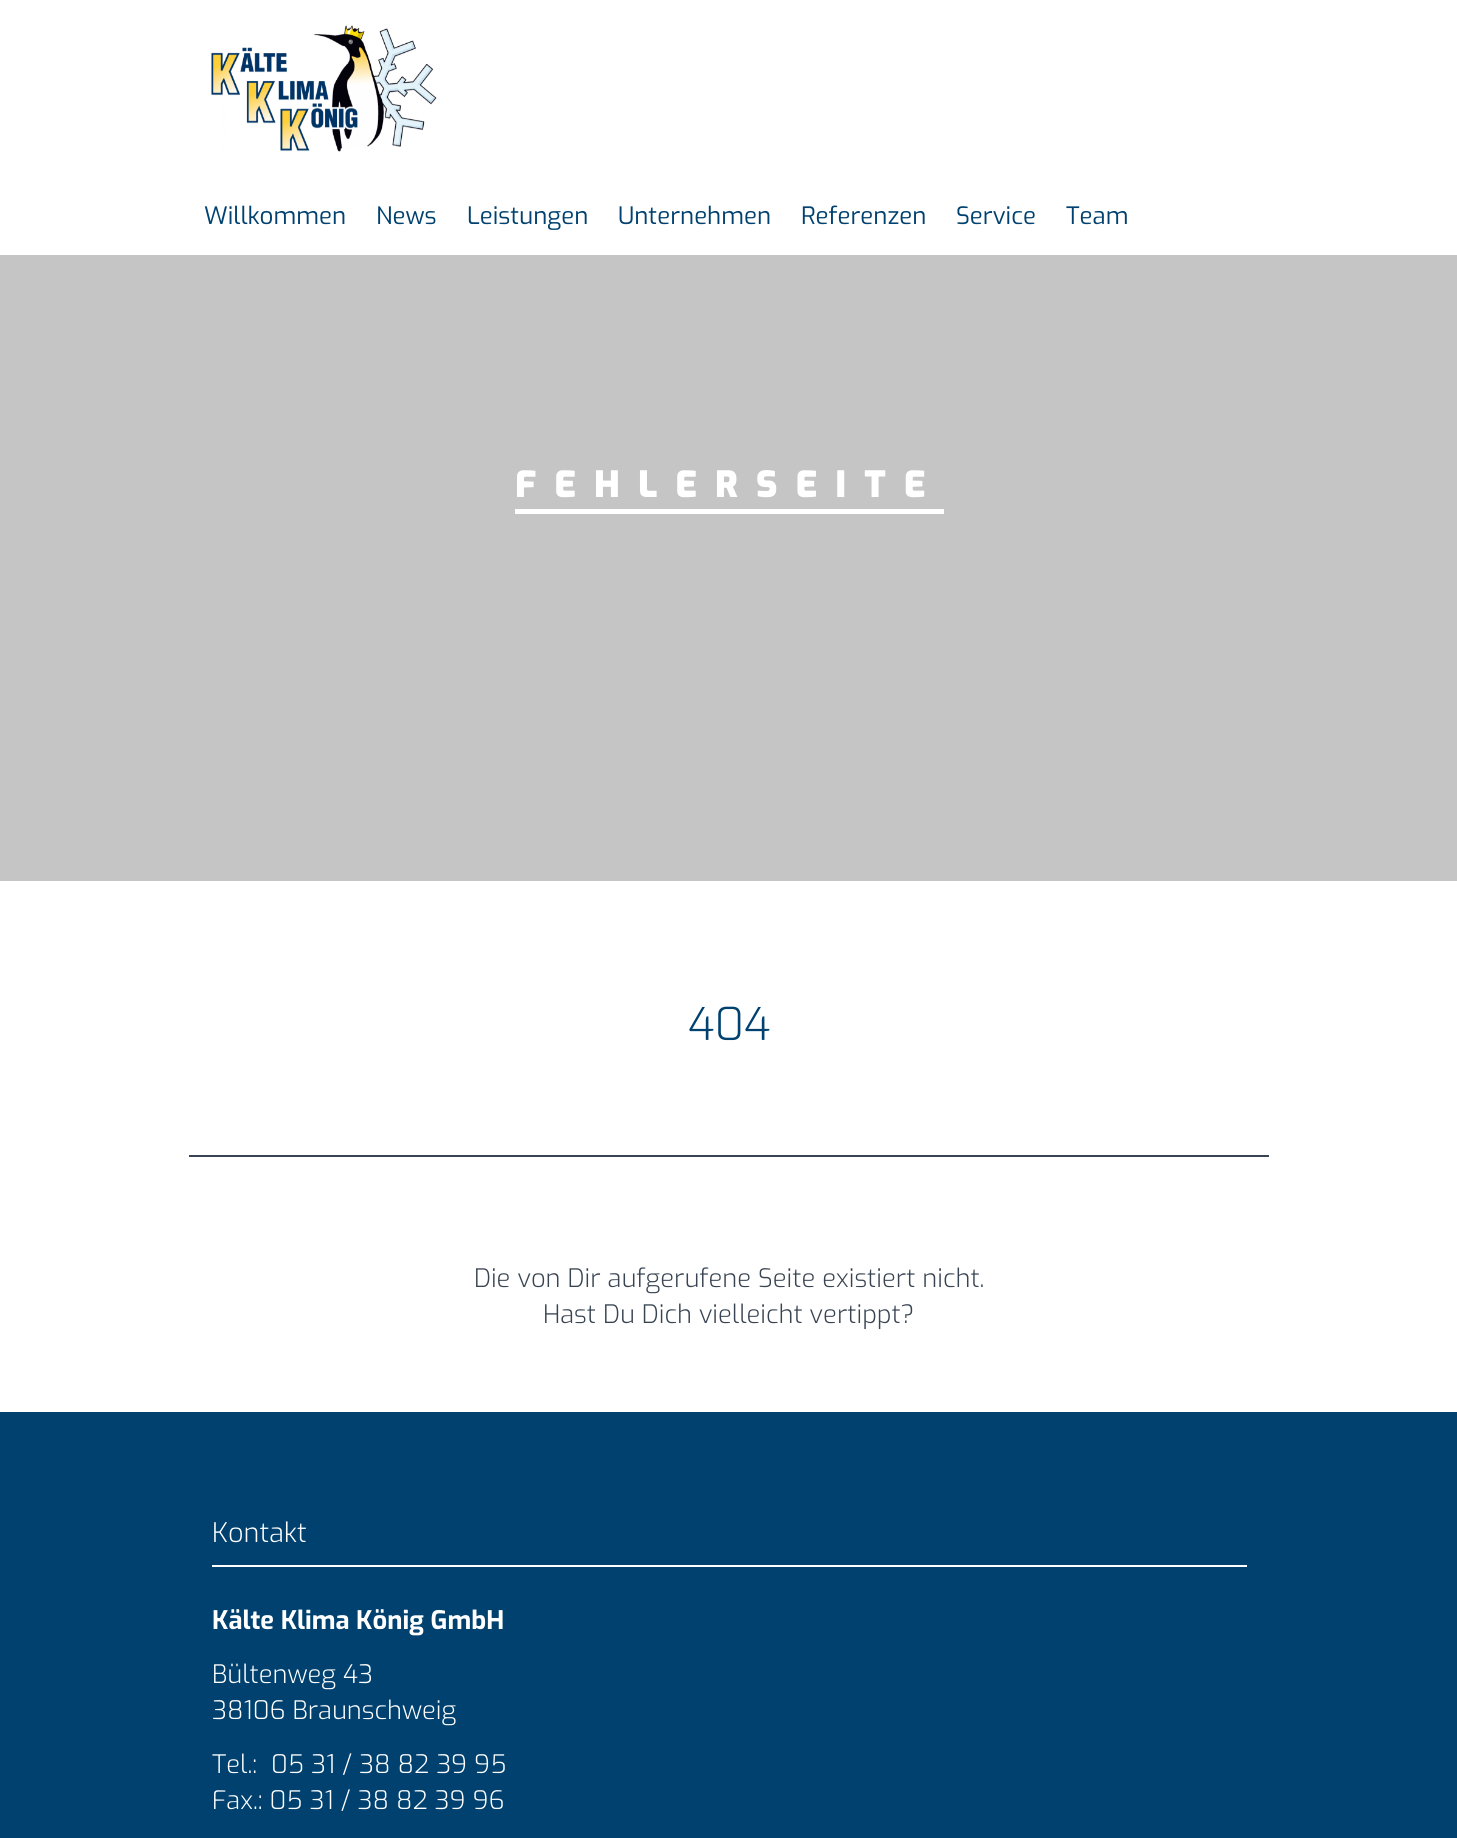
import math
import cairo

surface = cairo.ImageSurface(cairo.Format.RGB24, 1457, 1838)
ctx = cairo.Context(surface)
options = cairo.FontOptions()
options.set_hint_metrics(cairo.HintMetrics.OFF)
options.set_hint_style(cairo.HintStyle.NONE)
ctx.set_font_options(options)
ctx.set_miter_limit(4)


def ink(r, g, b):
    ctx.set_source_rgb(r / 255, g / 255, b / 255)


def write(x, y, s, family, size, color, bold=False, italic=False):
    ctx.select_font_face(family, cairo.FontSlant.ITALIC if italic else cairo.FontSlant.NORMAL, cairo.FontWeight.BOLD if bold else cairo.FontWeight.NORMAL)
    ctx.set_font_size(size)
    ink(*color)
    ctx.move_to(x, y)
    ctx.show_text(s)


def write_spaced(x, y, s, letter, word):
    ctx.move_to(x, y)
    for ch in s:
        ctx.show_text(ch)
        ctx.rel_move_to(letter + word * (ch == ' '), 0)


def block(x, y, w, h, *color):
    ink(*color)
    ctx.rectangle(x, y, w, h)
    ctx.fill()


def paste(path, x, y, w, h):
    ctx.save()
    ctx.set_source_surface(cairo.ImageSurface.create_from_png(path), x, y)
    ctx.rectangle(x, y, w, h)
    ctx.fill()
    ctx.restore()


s1 = dict(family="Exo", size=24, color=(0, 65, 111))
s2 = dict(family="Exo Light", size=45, color=(0, 65, 111))
s3 = dict(family="Exo Light", size=25.5, color=(56, 68, 82))
s4 = dict(family="Exo Light", size=27, color=(255, 255, 255))
s5 = dict(family="Exo", size=25.5, color=(255, 255, 255), bold=True)
s6 = dict(family="Exo Light", size=25.5, color=(255, 255, 255))

ink(255, 255, 255)
ctx.paint()
paste("pic1.png", 211, 25, 226, 127)
write(204, 224, "Willkommen", **s1)
write(376, 224, "News", **s1)
write(467, 224, "Leistungen", **s1)
write(618, 224, "Unternehmen", **s1)
write(801, 224, "Referenzen", **s1)
write(956, 224, "Service", **s1)
write(1066, 224, "Team", **s1)
block(0, 255, 1457, 626, 197, 197, 198)
ctx.select_font_face("Exo Black")
ctx.set_font_size(36)
ink(255, 255, 255)
write_spaced(515, 497, "FEHLERSEITE", 18, 0)
block(515, 509, 429, 5, 255, 255, 255)
write(688, 1040, "404", **s2)
block(189, 1155, 1080, 2, 56, 68, 82)
write(474, 1287, "Die von Dir aufgerufene Seite existiert nicht.", **s3)
write(543, 1323, "Hast Du Dich vielleicht vertippt?", **s3)
block(0, 1412, 1457, 426, 0, 65, 111)
write(212, 1542, "Kontakt", **s4)
block(212, 1565, 1035, 2, 255, 255, 255)
write(212, 1629, "Kälte Klima König GmbH", **s5)
write(212, 1683, "Bültenweg 43", **s6)
write(212, 1719, "38106 Braunschweig", **s6)
write(212, 1773, "Tel.:  05 31 / 38 82 39 95", **s6)
write(212, 1809, "Fax.: 05 31 / 38 82 39 96", **s6)
surface.write_to_png("screenshot.png")
